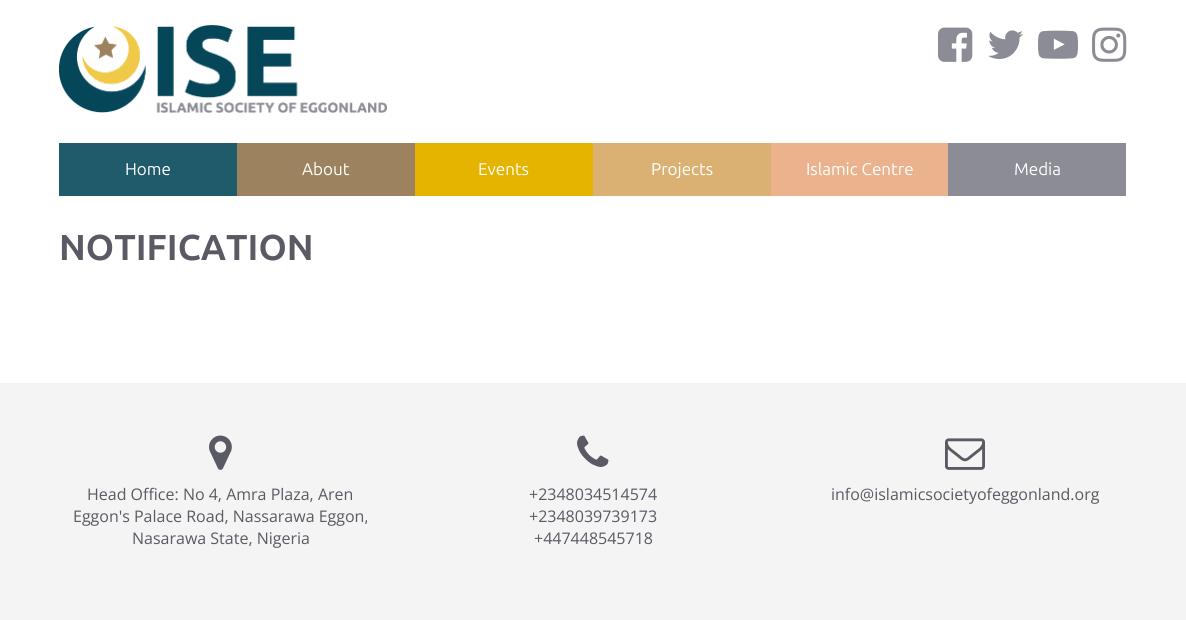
import math
import cairo

surface = cairo.ImageSurface(cairo.Format.RGB24, 1186, 620)
ctx = cairo.Context(surface)
options = cairo.FontOptions()
options.set_hint_metrics(cairo.HintMetrics.OFF)
options.set_hint_style(cairo.HintStyle.NONE)
ctx.set_font_options(options)
ctx.set_miter_limit(4)


def ink(r, g, b):
    ctx.set_source_rgb(r / 255, g / 255, b / 255)


def write(x, y, s, family, size, color, bold=False, italic=False):
    ctx.select_font_face(family, cairo.FontSlant.ITALIC if italic else cairo.FontSlant.NORMAL, cairo.FontWeight.BOLD if bold else cairo.FontWeight.NORMAL)
    ctx.set_font_size(size)
    ink(*color)
    ctx.move_to(x, y)
    ctx.show_text(s)


def block(x, y, w, h, *color):
    ink(*color)
    ctx.rectangle(x, y, w, h)
    ctx.fill()


def paste(path, x, y, w, h):
    ctx.save()
    ctx.set_source_surface(cairo.ImageSurface.create_from_png(path), x, y)
    ctx.rectangle(x, y, w, h)
    ctx.fill()
    ctx.restore()


s1 = dict(family="Ubuntu", size=17, color=(255, 255, 255))
s2 = dict(family="Ubuntu", size=36, color=(90, 90, 100), bold=True)
s3 = dict(family="Open Sans", size=16, color=(90, 90, 100))

ink(255, 255, 255)
ctx.paint()
paste("pic1.png", 59, 25, 328, 88)
paste("pic2.png", 938, 27, 35, 35)
paste("pic3.png", 988, 30, 35, 29)
paste("pic4.png", 1038, 30, 40, 29)
paste("pic5.png", 1092, 27, 35, 35)
block(59, 143, 178, 53, 32, 91, 107)
write(125, 175, "Home", **s1)
block(237, 143, 178, 53, 156, 130, 94)
write(302, 175, "About", **s1)
block(415, 143, 178, 53, 228, 180, 0)
write(478, 175, "Events", **s1)
block(593, 143, 178, 53, 219, 177, 115)
write(651, 175, "Projects", **s1)
block(771, 143, 177, 53, 234, 178, 141)
write(806, 175, "Islamic Centre", **s1)
block(948, 143, 178, 53, 140, 140, 150)
write(1014, 175, "Media", **s1)
write(59, 260, "NOTIFICATION", **s2)
block(0, 383, 1186, 237, 244, 244, 244)
paste("pic6.png", 209, 435, 23, 35)
write(87, 500, "Head Office: No 4, Amra Plaza, Aren", **s3)
write(73, 522, "Eggon's Palace Road, Nassarawa Eggon,", **s3)
write(132, 544, "Nasarawa State, Nigeria", **s3)
paste("pic7.png", 577, 435, 32, 32)
write(529, 500, "+2348034514574", **s3)
write(529, 522, "+2348039739173", **s3)
write(534, 544, "+447448545718", **s3)
paste("pic8.png", 945, 438, 40, 32)
write(831, 500, "info@islamicsocietyofeggonland.org", **s3)
surface.write_to_png("screenshot.png")
